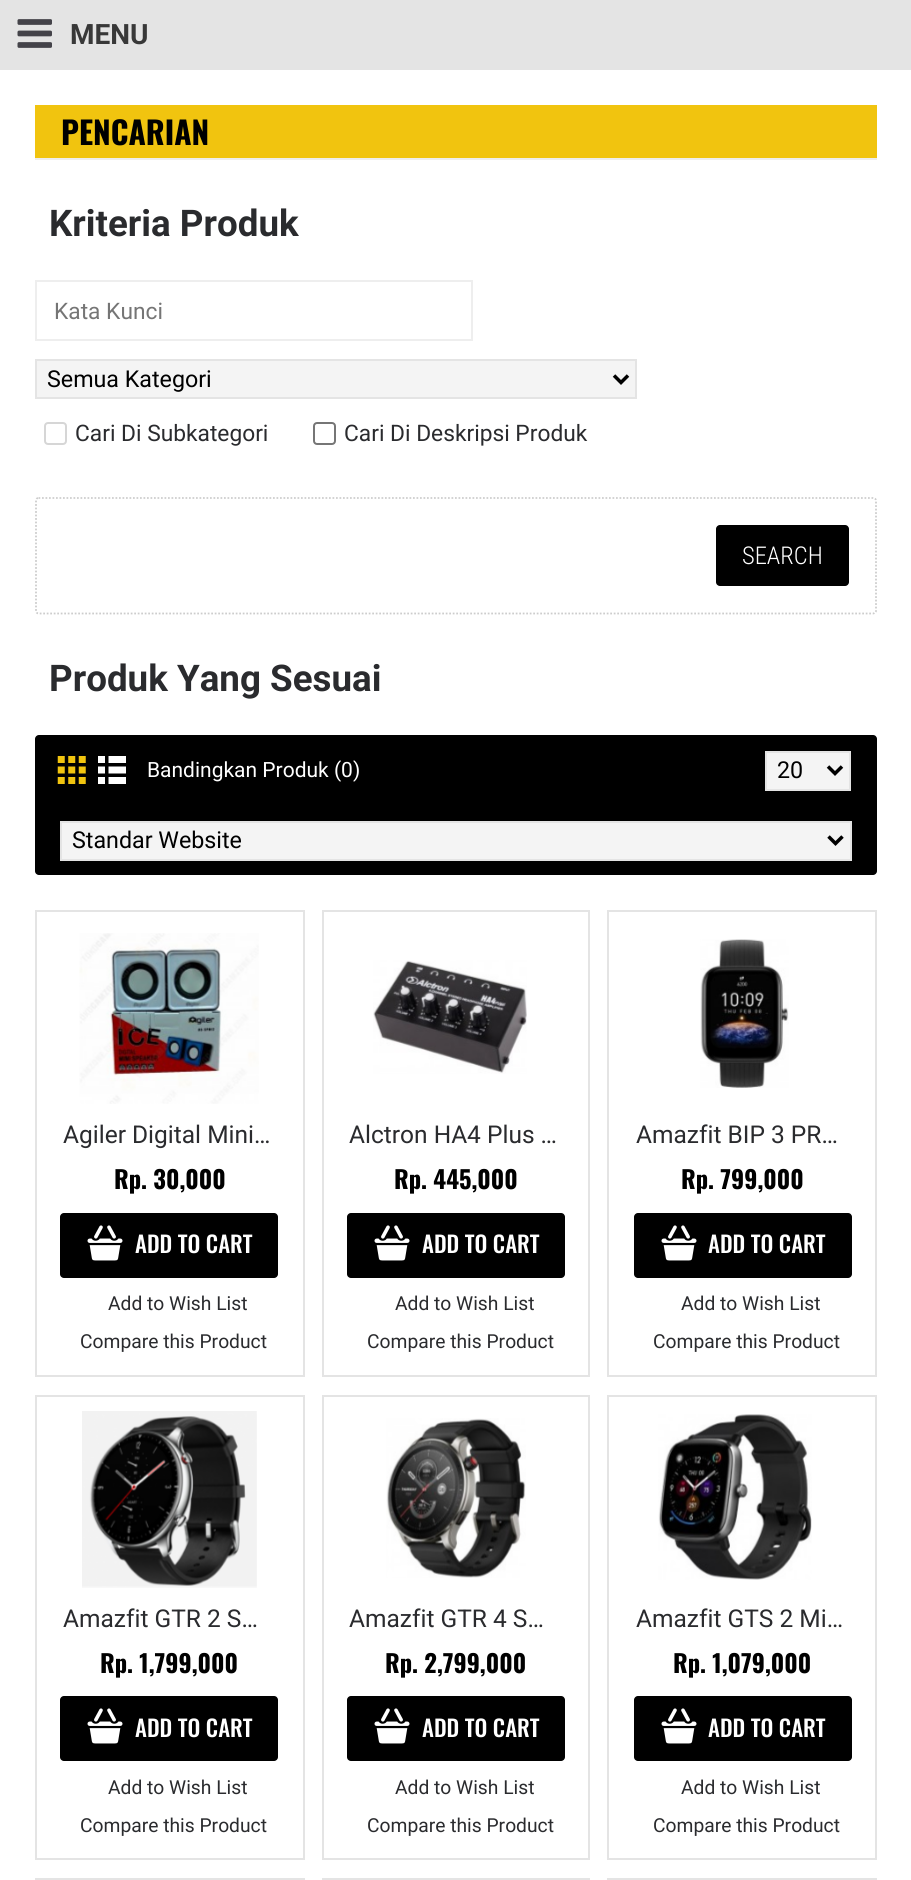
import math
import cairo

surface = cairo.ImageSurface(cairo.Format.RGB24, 911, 1880)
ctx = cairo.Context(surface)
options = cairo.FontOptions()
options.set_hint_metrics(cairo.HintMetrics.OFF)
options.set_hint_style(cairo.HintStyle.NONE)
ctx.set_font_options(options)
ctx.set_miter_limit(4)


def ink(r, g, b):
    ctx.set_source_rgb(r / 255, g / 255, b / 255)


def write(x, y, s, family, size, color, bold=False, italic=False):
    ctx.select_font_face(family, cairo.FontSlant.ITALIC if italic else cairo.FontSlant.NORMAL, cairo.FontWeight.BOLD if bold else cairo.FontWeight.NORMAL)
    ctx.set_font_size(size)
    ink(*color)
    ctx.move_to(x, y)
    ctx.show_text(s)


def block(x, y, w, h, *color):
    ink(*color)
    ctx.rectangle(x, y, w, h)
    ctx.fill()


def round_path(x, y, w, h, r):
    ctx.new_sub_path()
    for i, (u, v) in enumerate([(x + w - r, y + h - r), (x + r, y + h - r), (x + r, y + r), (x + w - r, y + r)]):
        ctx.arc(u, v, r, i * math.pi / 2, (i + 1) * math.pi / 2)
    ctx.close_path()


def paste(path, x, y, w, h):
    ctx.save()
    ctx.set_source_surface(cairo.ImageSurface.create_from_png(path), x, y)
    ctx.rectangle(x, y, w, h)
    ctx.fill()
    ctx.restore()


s1 = dict(family="Roboto", size=28, color=(56, 56, 56), bold=True)
s2 = dict(family="Oswald", size=31.5, color=(0, 0, 0), bold=True)
s3 = dict(family="Roboto", size=36.75, color=(42, 43, 46), bold=True)
s4 = dict(family="Roboto", size=22.75, color=(117, 117, 117))
s5 = dict(family="Roboto", size=23.25, color=(0, 0, 0))
s6 = dict(family="Roboto", size=22.75, color=(42, 43, 46))
s7 = dict(family="Roboto Condensed Light", size=24.5, color=(255, 255, 255))
s8 = dict(family="Roboto", size=21, color=(255, 255, 255))
s9 = dict(family="Roboto", size=24.5, color=(42, 43, 46))
s10 = dict(family="Oswald", size=24.5, color=(0, 0, 0), bold=True)
s11 = dict(family="Oswald Medium", size=22.75, color=(255, 255, 255))
s12 = dict(family="Roboto", size=19.25, color=(42, 43, 46))

ink(255, 255, 255)
ctx.paint()
block(0, 0, 911, 70, 228, 228, 228)
paste("pic1.png", 17, 19, 35, 29)
write(70, 44, "MENU", **s1)
block(35, 105, 842, 53, 241, 196, 15)
block(35, 158, 842, 2, 238, 238, 238)
write(61, 145, "PENCARIAN", **s2)
write(49, 236, "Kriteria Produk", **s3)
ctx.rectangle(36, 281, 436, 59)
ink(238, 238, 238)
ctx.stroke()
write(54, 319, "Kata Kunci", **s4)
ink(244, 244, 244)
ctx.rectangle(36, 360, 600, 38)
ctx.fill_preserve()
ink(228, 228, 228)
ctx.stroke()
ctx.new_path()
ctx.move_to(614, 375.5)
ctx.line_to(621, 382.5)
ctx.line_to(628, 375.5)
ink(0, 0, 0)
ctx.set_line_width(3.5)
ctx.stroke()
write(47, 387, "Semua Kategori", **s5)
round_path(45, 423, 21, 21, 3)
ink(214, 214, 214)
ctx.set_line_width(2)
ctx.stroke()
write(75, 441, "Cari Di Subkategori", **s6)
round_path(314, 423, 21, 21, 3)
ink(118, 118, 118)
ctx.stroke()
write(344, 441, "Cari Di Deskripsi Produk", **s6)
ctx.new_path()
ctx.move_to(38.5, 498)
ctx.line_to(873, 498)
ctx.curve_to(874.5, 498, 876, 499, 876, 500.5)
ctx.line_to(876, 611)
ctx.curve_to(876, 612, 874.5, 613.5, 873, 613.5)
ctx.line_to(38.5, 613.5)
ctx.curve_to(37, 613.5, 36, 612, 36, 611)
ctx.line_to(36, 500.5)
ctx.curve_to(36, 499, 37, 498, 38.5, 498)
ctx.close_path()
ink(204, 204, 204)
ctx.set_line_width(1.8)
ctx.set_dash([1.75, 1.75])
ctx.stroke()
ink(0, 0, 0)
round_path(716, 525, 133, 61, 4)
ctx.fill()
write(742, 564, "SEARCH", **s7)
write(49, 691, "Produk Yang Sesuai", **s3)
ink(0, 0, 0)
round_path(35, 735, 842, 140, 4)
ctx.fill()
paste("pic2.png", 57, 756, 29, 28)
paste("pic3.png", 98, 756, 28, 28)
write(147, 777, "Bandingkan Produk (0)", **s8)
ink(244, 244, 244)
ctx.rectangle(766, 752, 84, 38)
ctx.fill_preserve()
ink(228, 228, 228)
ctx.set_line_width(2)
ctx.set_dash([])
ctx.stroke()
ctx.new_path()
ctx.move_to(828, 766.5)
ctx.line_to(835, 773.5)
ctx.line_to(842, 766.5)
ink(0, 0, 0)
ctx.set_line_width(3.5)
ctx.stroke()
write(777, 778, "20", **s5)
ink(244, 244, 244)
ctx.rectangle(61, 822, 790, 38)
ctx.fill_preserve()
ink(228, 228, 228)
ctx.set_line_width(2)
ctx.stroke()
ctx.new_path()
ctx.move_to(828.5, 836.5)
ctx.line_to(835.5, 843.5)
ctx.line_to(842.5, 836.5)
ink(0, 0, 0)
ctx.set_line_width(3.5)
ctx.stroke()
write(72, 848, "Standar Website", **s5)
ctx.rectangle(36, 911, 268, 465)
ink(228, 228, 228)
ctx.set_line_width(2)
ctx.stroke()
paste("pic4.png", 79, 933, 180, 171)
write(63, 1143, "Agiler Digital Mini…", **s9)
write(114, 1189, "Rp. 30,000", **s10)
round_path(60, 1213, 218, 65, 4)
ctx.fill()
paste("pic5.png", 87, 1225, 36, 36)
write(135, 1253, "ADD TO CART", **s11)
write(108, 1310, "Add to Wish List", **s12)
write(80, 1348, "Compare this Product", **s12)
ctx.rectangle(323, 911, 266, 465)
ink(228, 228, 228)
ctx.stroke()
paste("pic6.png", 373, 960, 154, 114)
write(349, 1143, "Alctron HA4 Plus …", **s9)
write(394, 1189, "Rp. 445,000", **s10)
round_path(347, 1213, 218, 65, 4)
ctx.fill()
paste("pic5.png", 374, 1225, 36, 36)
write(422, 1253, "ADD TO CART", **s11)
write(395, 1310, "Add to Wish List", **s12)
write(367, 1348, "Compare this Product", **s12)
ctx.rectangle(608, 911, 268, 465)
ink(228, 228, 228)
ctx.stroke()
paste("pic7.png", 700, 939, 89, 149)
write(636, 1143, "Amazfit BIP 3 PR…", **s9)
write(681, 1189, "Rp. 799,000", **s10)
round_path(634, 1213, 218, 65, 4)
ctx.fill()
paste("pic5.png", 661, 1225, 36, 36)
write(708, 1253, "ADD TO CART", **s11)
write(681, 1310, "Add to Wish List", **s12)
write(653, 1348, "Compare this Product", **s12)
ctx.rectangle(36, 1396, 268, 463)
ink(228, 228, 228)
ctx.stroke()
paste("pic8.png", 82, 1411, 175, 177)
write(63, 1627, "Amazfit GTR 2 S…", **s9)
write(100, 1673, "Rp. 1,799,000", **s10)
round_path(60, 1696, 218, 65, 4)
ctx.fill()
paste("pic5.png", 87, 1708, 36, 36)
write(135, 1737, "ADD TO CART", **s11)
write(108, 1794, "Add to Wish List", **s12)
write(80, 1832, "Compare this Product", **s12)
ctx.rectangle(323, 1396, 266, 463)
ink(228, 228, 228)
ctx.stroke()
paste("pic9.png", 386, 1418, 140, 160)
write(349, 1627, "Amazfit GTR 4 S…", **s9)
write(385, 1673, "Rp. 2,799,000", **s10)
round_path(347, 1696, 218, 65, 4)
ctx.fill()
paste("pic5.png", 374, 1708, 36, 36)
write(422, 1737, "ADD TO CART", **s11)
write(395, 1794, "Add to Wish List", **s12)
write(367, 1832, "Compare this Product", **s12)
ctx.rectangle(608, 1396, 268, 463)
ink(228, 228, 228)
ctx.stroke()
paste("pic10.png", 658, 1414, 154, 166)
write(636, 1627, "Amazfit GTS 2 Mi…", **s9)
write(673, 1673, "Rp. 1,079,000", **s10)
round_path(634, 1696, 218, 65, 4)
ctx.fill()
paste("pic5.png", 661, 1708, 36, 36)
write(708, 1737, "ADD TO CART", **s11)
write(681, 1794, "Add to Wish List", **s12)
write(653, 1832, "Compare this Product", **s12)
ctx.rectangle(36, 1879, 268, 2)
ink(228, 228, 228)
ctx.stroke()
ctx.rectangle(323, 1879, 266, 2)
ctx.stroke()
ctx.rectangle(608, 1879, 268, 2)
ctx.stroke()
surface.write_to_png("screenshot.png")
